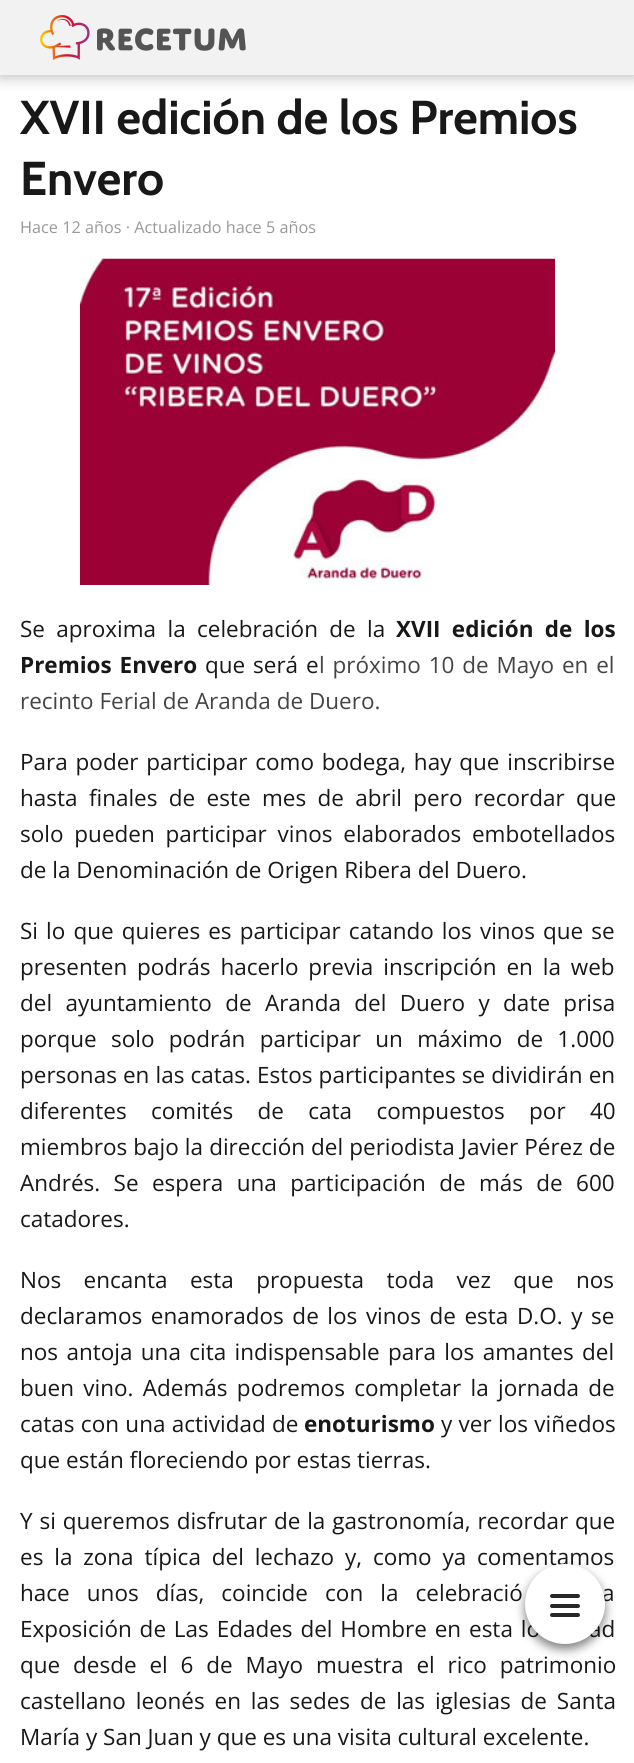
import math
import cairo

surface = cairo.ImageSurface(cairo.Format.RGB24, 634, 1763)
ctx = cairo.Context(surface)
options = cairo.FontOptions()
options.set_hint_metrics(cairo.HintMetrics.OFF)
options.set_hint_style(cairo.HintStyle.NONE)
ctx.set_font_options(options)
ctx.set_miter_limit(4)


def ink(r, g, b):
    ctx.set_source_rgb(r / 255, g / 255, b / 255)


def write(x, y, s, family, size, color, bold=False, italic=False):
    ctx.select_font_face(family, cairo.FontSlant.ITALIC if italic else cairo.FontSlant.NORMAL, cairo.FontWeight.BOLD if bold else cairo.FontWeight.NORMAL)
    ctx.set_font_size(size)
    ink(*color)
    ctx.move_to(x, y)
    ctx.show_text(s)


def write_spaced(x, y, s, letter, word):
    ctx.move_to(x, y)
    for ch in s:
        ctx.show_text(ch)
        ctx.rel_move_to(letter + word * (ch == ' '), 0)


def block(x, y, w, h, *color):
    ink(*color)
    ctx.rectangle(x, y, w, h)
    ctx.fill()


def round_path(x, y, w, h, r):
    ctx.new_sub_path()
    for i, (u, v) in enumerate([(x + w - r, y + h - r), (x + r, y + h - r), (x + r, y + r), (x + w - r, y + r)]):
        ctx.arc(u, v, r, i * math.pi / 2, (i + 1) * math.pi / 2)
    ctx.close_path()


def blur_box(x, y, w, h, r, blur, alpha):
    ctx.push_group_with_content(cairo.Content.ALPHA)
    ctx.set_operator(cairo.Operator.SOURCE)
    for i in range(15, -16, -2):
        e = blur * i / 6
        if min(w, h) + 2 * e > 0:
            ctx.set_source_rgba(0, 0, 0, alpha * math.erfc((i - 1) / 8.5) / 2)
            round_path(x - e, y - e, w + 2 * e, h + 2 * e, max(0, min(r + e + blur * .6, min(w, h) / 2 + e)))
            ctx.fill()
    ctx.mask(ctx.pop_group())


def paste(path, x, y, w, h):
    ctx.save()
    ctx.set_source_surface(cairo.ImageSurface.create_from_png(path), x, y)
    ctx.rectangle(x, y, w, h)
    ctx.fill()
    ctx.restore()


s1 = dict(family="Cabin", size=47.5, color=(24, 24, 24), bold=True)
s2 = dict(family="Noto Sans", size=16.25, color=(153, 153, 153))
s3 = dict(family="Open Sans", size=16.25, color=(153, 153, 153))
s4 = dict(family="Open Sans", size=22.5, color=(68, 68, 68))
s5 = dict(family="Open Sans", size=22.5, color=(24, 24, 24))
s6 = dict(family="Open Sans", size=22.5, color=(24, 24, 24), bold=True)

ink(255, 255, 255)
ctx.paint()
ink(0, 0, 0)
blur_box(0, 1, 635, 75, 0, 7.5, 0.3)
block(0, 0, 634, 75, 242, 242, 242)
paste("pic1.png", 40, 15, 206, 45)
write(20, 134, "XVII edición de los Premios", **s1)
write(20, 195, "Envero", **s1)
write(20, 233, "H", **s2)
write(32, 233, "ace 12 años · Actualizado hace 5 años", **s3)
paste("pic2.png", 80, 258, 475, 327)
ctx.set_font_size(22.5)
ink(24, 24, 24)
write_spaced(20, 637, "Se aproxima la celebración de la", 0, 5.5)
ctx.select_font_face("Open Sans", cairo.FontSlant.NORMAL, cairo.FontWeight.BOLD)
write_spaced(396, 637, "XVII edición de los", 0, 5.5)
write_spaced(20, 673, "Premios Envero", 0, 2)
ctx.select_font_face("Open Sans")
write_spaced(205, 673, "que será e", 0, 2)
ink(68, 68, 68)
write_spaced(319, 673, "l próximo 10 de Mayo en el", 0, 2)
write(20, 709, "recinto Ferial de Aranda de Duero.", **s4)
ink(24, 24, 24)
write_spaced(20, 770, "Para poder participar como bodega, hay que inscribirse", 0, 2)
write_spaced(20, 806, "hasta finales de este mes de abril pero recordar que", 0, 5.5)
write_spaced(20, 842, "solo pueden participar vinos elaborados embotellados", 0, 5)
write(20, 878, "de la Denominación de Origen Ribera del Duero.", **s5)
write_spaced(20, 939, "Si lo que quieres es participar catando los vinos que se", 0, 2.25)
write_spaced(20, 975, "presenten podrás hacerlo previa inscripción en la web", 0, 4)
write_spaced(20, 1011, "del ayuntamiento de Aranda del Duero y date prisa", 0, 7.5)
write_spaced(20, 1047, "porque solo podrán participar un máximo de 1.000", 0, 8.5)
write_spaced(20, 1083, "personas en las catas. Estos participantes se dividirán en", 0, 0.25)
write_spaced(20, 1119, "diferentes comités de cata compuestos por 40", 0, 18.5)
write_spaced(20, 1155, "miembros bajo la dirección del periodista Javier Pérez de", 0, 0.25)
write_spaced(20, 1191, "Andrés. Se espera una participación de más de 600", 0, 7.5)
write(20, 1227, "catadores.", **s5)
write_spaced(20, 1288, "Nos encanta esta propuesta toda vez que nos", 0, 16.5)
write_spaced(20, 1324, "declaramos enamorados de los vinos de esta D.O. y se", 0, 2.75)
write_spaced(20, 1360, "nos antoja una cita indispensable para los amantes del", 0, 2.5)
write_spaced(20, 1396, "buen vino. Además podremos completar la jornada de", 0, 3.5)
write_spaced(20, 1432, "catas con una actividad de", 0, 0.5)
write(304, 1432, "enoturismo", **s6)
ctx.select_font_face("Open Sans")
write_spaced(441, 1432, "y ver los viñedos", 0, 0.5)
write(20, 1468, "que están floreciendo por estas tierras.", **s5)
write_spaced(20, 1529, "Y si queremos disfrutar de la gastronomía, recordar que", 0, 1)
write_spaced(20, 1565, "es la zona típica del lechazo y, como ya comentamos", 0, 5)
write_spaced(20, 1601, "hace unos días, coincide con la celebració", 0, 11.25)
write_spaced(602, 1601, "a", 0, 11.25)
write_spaced(20, 1637, "Exposición de Las Edades del Hombre en esta lo", 0, 2)
write_spaced(589, 1637, "ad", 0, 2)
write_spaced(20, 1673, "que desde el 6 de Mayo muestra el rico patrimonio", 0, 7)
write_spaced(20, 1709, "castellano leonés en las sedes de las iglesias de Santa", 0, 4)
write(20, 1745, "María y San Juan y que es una visita cultural excelente.", **s5)
ink(0, 0, 0)
blur_box(525, 1569, 80, 80, 40, 5, 0.5)
ink(255, 255, 255)
ctx.arc(565, 1604, 40, 0, 2 * math.pi)
ctx.fill()
ink(40, 40, 40)
round_path(550, 1594, 30, 4, 2)
ctx.fill()
round_path(550, 1604, 30, 4, 2)
ctx.fill()
round_path(550, 1613, 30, 4, 2)
ctx.fill()
surface.write_to_png("screenshot.png")
